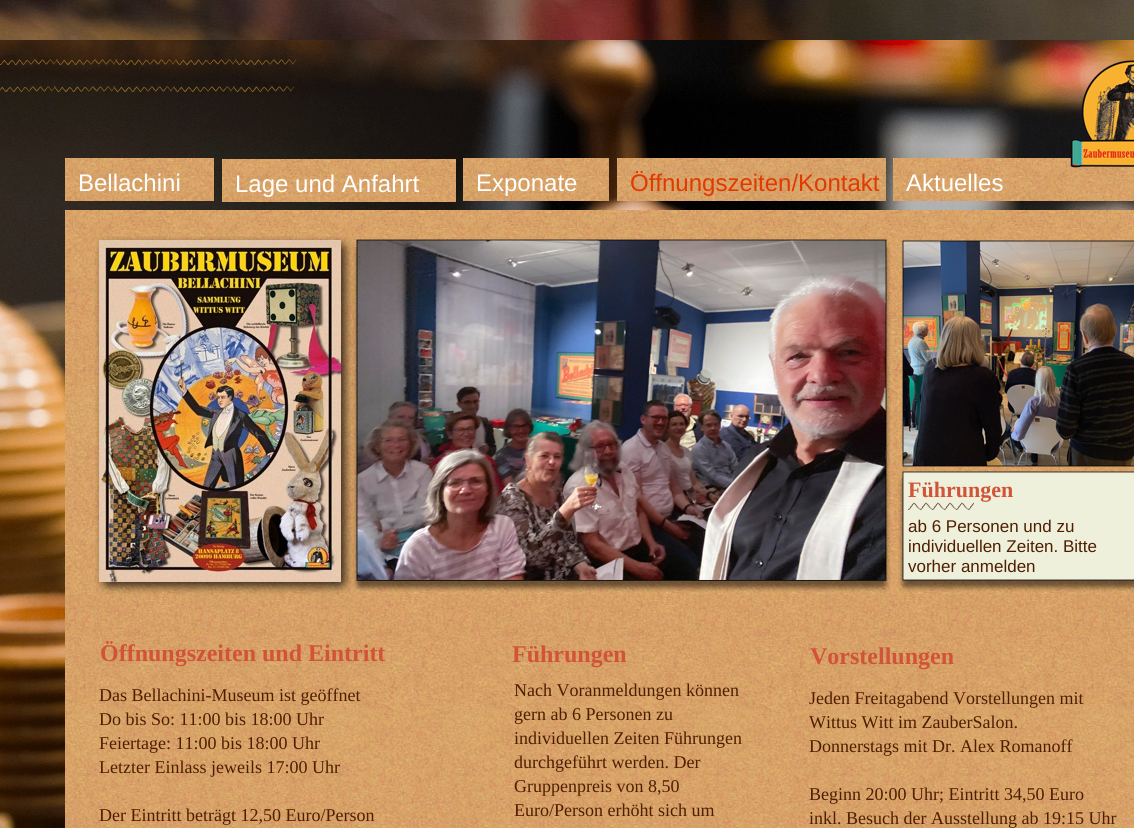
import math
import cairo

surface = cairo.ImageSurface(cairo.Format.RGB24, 1134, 828)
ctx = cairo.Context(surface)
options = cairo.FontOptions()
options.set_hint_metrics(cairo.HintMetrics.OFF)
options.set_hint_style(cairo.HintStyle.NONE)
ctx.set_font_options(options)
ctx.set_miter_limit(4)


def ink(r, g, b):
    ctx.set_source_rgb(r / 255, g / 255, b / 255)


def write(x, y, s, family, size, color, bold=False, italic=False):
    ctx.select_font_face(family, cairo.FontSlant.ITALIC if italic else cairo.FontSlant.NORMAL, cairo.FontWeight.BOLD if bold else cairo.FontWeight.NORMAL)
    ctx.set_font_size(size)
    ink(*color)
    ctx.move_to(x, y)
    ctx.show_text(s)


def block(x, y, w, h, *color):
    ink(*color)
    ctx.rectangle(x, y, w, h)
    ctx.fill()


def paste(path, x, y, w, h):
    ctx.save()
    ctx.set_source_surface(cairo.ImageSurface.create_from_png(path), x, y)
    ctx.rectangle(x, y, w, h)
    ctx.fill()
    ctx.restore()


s1 = dict(family="Liberation Sans", size=24, color=(255, 255, 255))
s2 = dict(family="Liberation Sans", size=24, color=(225, 58, 0))
s3 = dict(family="Liberation Serif", size=22, color=(209, 84, 57), bold=True)
s4 = dict(family="Liberation Sans", size=17, color=(79, 30, 1))
s5 = dict(family="Liberation Serif", size=24, color=(209, 84, 57), bold=True)
s6 = dict(family="Liberation Serif", size=18, color=(79, 30, 1))

ink(255, 255, 255)
ctx.paint()
paste("pic1.png", 0, 0, 1134, 40)
paste("pic2.png", 0, 40, 1134, 788)
paste("pic3.png", 0, 59, 297, 6)
paste("pic4.png", 0, 86, 295, 6)
paste("pic10.png", 893, 158, 241, 43)
paste("pic5.png", 1070, 60, 64, 108)
paste("pic6.png", 65, 158, 149, 43)
paste("pic7.png", 222, 159, 234, 43)
paste("pic8.png", 463, 158, 146, 43)
paste("pic9.png", 617, 158, 269, 43)
write(78, 191, "Bellachini", **s1)
write(235, 192, "Lage und Anfahrt", **s1)
write(476, 191, "Exponate", **s1)
write(630, 191, "Öffnungszeiten/Kontakt", **s2)
write(906, 191, "Aktuelles", **s1)
paste("pic11.png", 65, 210, 1069, 618)
paste("pic13.png", 352, 239, 539, 353)
paste("pic12.png", 95, 236, 259, 359)
paste("pic15.png", 903, 241, 231, 225)
paste("pic14.png", 902, 240, 2, 2)
ctx.set_source_rgba(0, 0, 0, 0.38)
ctx.rectangle(904, 240, 230, 2)
ctx.fill()
ctx.rectangle(902, 242, 2, 223)
ctx.fill()
paste("pic16.png", 902, 465, 2, 2)
ctx.rectangle(904, 465, 230, 2)
ctx.fill()
block(903, 472, 231, 108, 238, 240, 219)
paste("pic17.png", 898, 471, 236, 121)
write(908, 497, "Führungen", **s3)
paste("pic18.png", 908, 502, 66, 8)
write(908, 532, "ab 6 Personen und zu", **s4)
write(908, 552, "individuellen Zeiten. Bitte", **s4)
write(908, 572, "vorher anmelden", **s4)
write(100, 661, "Öffnungszeiten und Eintritt", **s5)
write(512, 662, "Führungen", **s5)
write(810, 664, "Vorstellungen", **s5)
write(99, 701, "Das Bellachini-Museum ist geöffnet", **s6)
write(99, 725, "Do bis So: 11:00 bis 18:00 Uhr", **s6)
write(99, 749, "Feiertage: 11:00 bis 18:00 Uhr", **s6)
write(99, 773, "Letzter Einlass jeweils 17:00 Uhr", **s6)
write(99, 821, "Der Eintritt beträgt 12,50 Euro/Person", **s6)
write(514, 696, "Nach Voranmeldungen können", **s6)
write(514, 720, "gern ab 6 Personen zu", **s6)
write(514, 744, "individuellen Zeiten Führungen", **s6)
write(514, 768, "durchgeführt werden. Der", **s6)
write(514, 792, "Gruppenpreis von 8,50", **s6)
write(514, 816, "Euro/Person erhöht sich um", **s6)
write(809, 704, "Jeden Freitagabend Vorstellungen mit", **s6)
write(809, 728, "Wittus Witt im ZauberSalon.", **s6)
write(809, 752, "Donnerstags mit Dr. Alex Romanoff", **s6)
write(809, 800, "Beginn 20:00 Uhr; Eintritt 34,50 Euro", **s6)
write(809, 824, "inkl. Besuch der Ausstellung ab 19:15 Uhr", **s6)
surface.write_to_png("screenshot.png")
